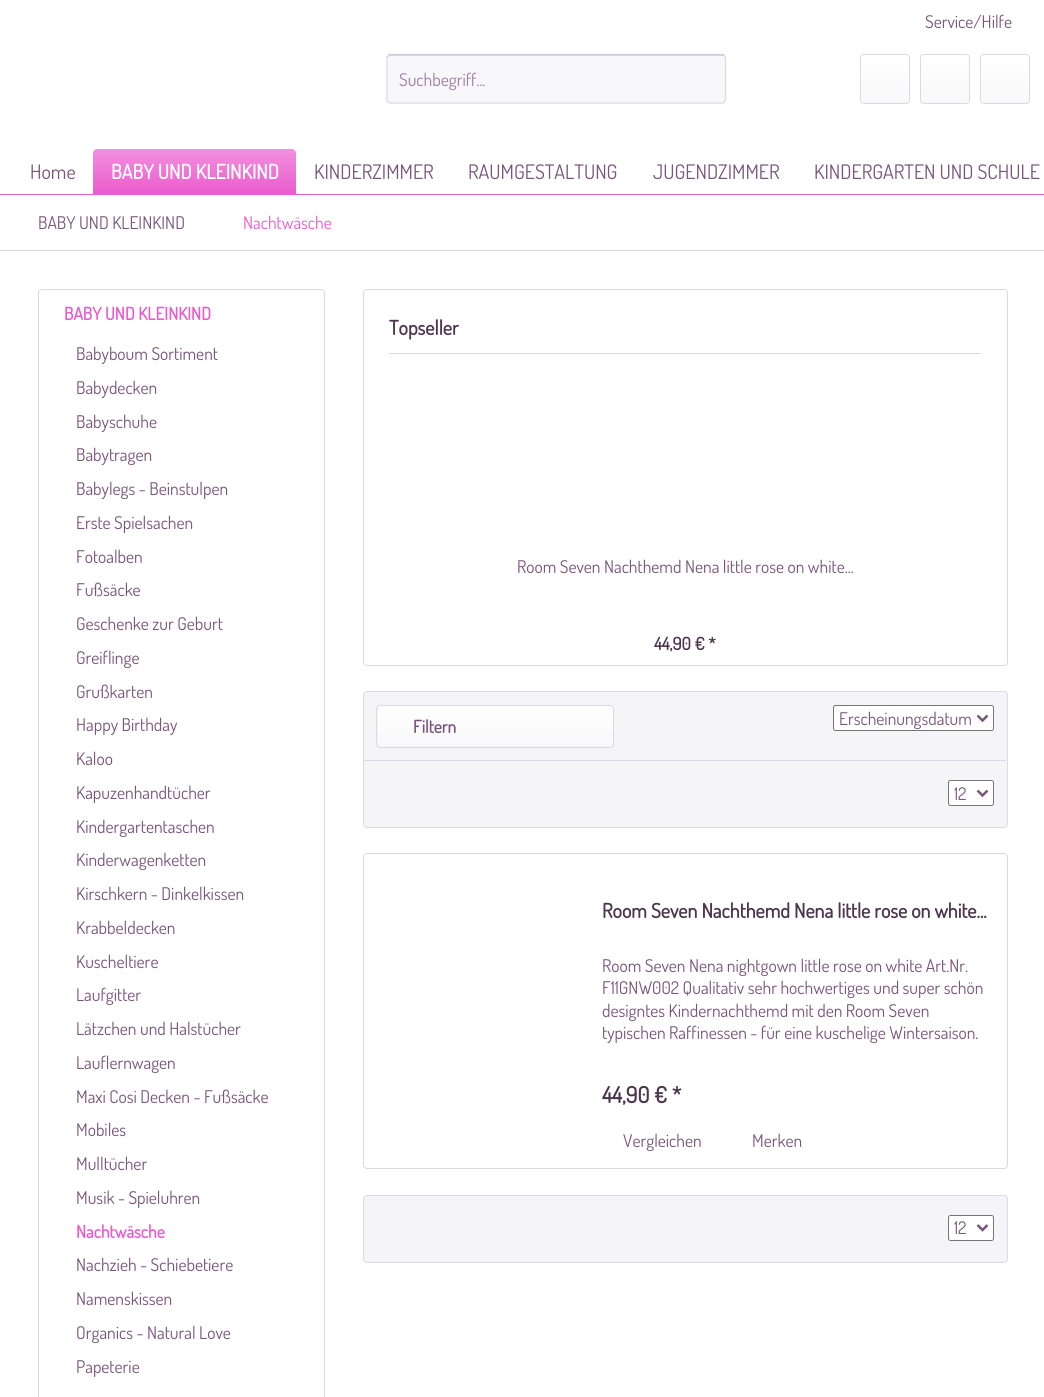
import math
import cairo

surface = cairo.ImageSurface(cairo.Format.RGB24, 1044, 1397)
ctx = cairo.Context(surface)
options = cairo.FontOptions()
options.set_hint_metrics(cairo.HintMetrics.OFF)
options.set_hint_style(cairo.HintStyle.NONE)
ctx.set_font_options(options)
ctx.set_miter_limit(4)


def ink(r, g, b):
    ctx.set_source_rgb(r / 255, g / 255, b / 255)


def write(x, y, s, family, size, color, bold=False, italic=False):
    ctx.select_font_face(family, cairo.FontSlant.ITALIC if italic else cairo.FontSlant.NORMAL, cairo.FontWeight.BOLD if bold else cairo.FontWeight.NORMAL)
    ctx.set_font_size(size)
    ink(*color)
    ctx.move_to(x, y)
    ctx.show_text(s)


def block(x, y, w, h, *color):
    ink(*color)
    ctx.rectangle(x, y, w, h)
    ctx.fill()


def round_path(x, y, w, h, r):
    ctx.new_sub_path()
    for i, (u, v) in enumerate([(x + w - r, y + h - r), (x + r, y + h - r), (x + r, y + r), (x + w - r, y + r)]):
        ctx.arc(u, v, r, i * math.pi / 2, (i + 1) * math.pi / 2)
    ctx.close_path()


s1 = dict(family="Dosis", size=17.5, color=(119, 86, 122))
s2 = dict(family="Dosis", size=17.5, color=(159, 123, 162))
s3 = dict(family="Dosis", size=20, color=(119, 86, 122))
s4 = dict(family="Dosis", size=20, color=(255, 255, 255), bold=True)
s5 = dict(family="Dosis", size=17.5, color=(234, 92, 204))
s6 = dict(family="Dosis", size=17.5, color=(234, 92, 204), bold=True)
s7 = dict(family="Dosis", size=20, color=(75, 54, 77), bold=True)
s8 = dict(family="Dosis", size=17.5, color=(75, 54, 77), bold=True)
s9 = dict(family="Dosis", size=17.5, color=(119, 86, 122), bold=True)
s10 = dict(family="Dosis", size=22.5, color=(75, 54, 77), bold=True)

ink(255, 255, 255)
ctx.paint()
write(925, 28, "Service/Hilfe", **s1)
ink(248, 248, 250)
round_path(386, 54, 340, 50, 4)
ctx.fill()
ink(218, 218, 229)
ctx.new_path()
ctx.move_to(390, 56)
ctx.line_to(722, 56)
ctx.curve_to(724, 56, 725, 57, 725, 59)
ctx.curve_to(725, 57, 725, 55, 722, 55)
ctx.line_to(390, 55)
ctx.line_to(388, 56)
ctx.line_to(388, 59)
ctx.curve_to(388, 57, 389, 56, 390, 56)
ctx.close_path()
ctx.fill()
ctx.new_path()
ctx.move_to(388, 55.5)
ctx.line_to(389.5, 54.5)
ctx.line_to(501, 54.5)
ctx.line_to(722.5, 54.5)
ctx.line_to(724.5, 55.5)
ink(203, 203, 219)
ctx.set_line_width(1.2)
ctx.stroke()
ctx.new_path()
ctx.move_to(724.5, 55.5)
ctx.line_to(725.5, 57.5)
ctx.line_to(725.5, 100)
ctx.line_to(724.5, 102)
ctx.line_to(722.5, 103)
ctx.line_to(390, 103)
ctx.line_to(388, 102)
ctx.line_to(387, 100)
ctx.line_to(387, 57.5)
ctx.line_to(388, 55.5)
ink(218, 218, 229)
ctx.stroke()
write(399, 86, "Suchbegriff...", **s2)
gradient = cairo.LinearGradient(885, 55, 885, 103)
gradient.add_color_stop_rgba(0, 1, 1, 1, 1)
gradient.add_color_stop_rgba(1, 0.973, 0.973, 0.98, 1)
ctx.set_source(gradient)
round_path(861, 55, 48, 48, 2.5)
ctx.fill()
round_path(860.5, 54.5, 49, 49, 3.5)
ink(218, 218, 229)
ctx.set_line_width(1)
ctx.stroke()
gradient = cairo.LinearGradient(945, 55, 945, 103)
gradient.add_color_stop_rgba(0, 1, 1, 1, 1)
gradient.add_color_stop_rgba(1, 0.973, 0.973, 0.98, 1)
ctx.set_source(gradient)
round_path(921, 55, 48, 48, 2.5)
ctx.fill()
round_path(920.5, 54.5, 49, 49, 3.5)
ink(218, 218, 229)
ctx.stroke()
gradient = cairo.LinearGradient(1005, 55, 1005, 103)
gradient.add_color_stop_rgba(0, 1, 1, 1, 1)
gradient.add_color_stop_rgba(1, 0.973, 0.973, 0.98, 1)
ctx.set_source(gradient)
round_path(981, 55, 48, 48, 2.5)
ctx.fill()
round_path(980.5, 54.5, 49, 49, 3.5)
ink(218, 218, 229)
ctx.stroke()
block(0, 194, 1044, 1, 234, 92, 204)
write(30, 179, "Home", **s3)
gradient = cairo.LinearGradient(194, 149, 194, 194)
gradient.add_color_stop_rgba(0, 0.957, 0.561, 0.875, 1)
gradient.add_color_stop_rgba(1, 0.918, 0.361, 0.8, 1)
ctx.set_source(gradient)
ctx.new_path()
ctx.move_to(97, 149)
ctx.line_to(292, 149)
ctx.curve_to(294, 149, 296, 151, 296, 153)
ctx.line_to(296, 194)
ctx.line_to(93, 194)
ctx.line_to(93, 153)
ctx.curve_to(93, 151, 95, 149, 97, 149)
ctx.close_path()
ctx.fill()
write(111, 179, "BABY UND KLEINKIND", **s4)
write(314, 179, "KINDERZIMMER", **s3)
write(468, 179, "RAUMGESTALTUNG", **s3)
write(653, 179, "JUGENDZIMMER", **s3)
write(814, 179, "KINDERGARTEN UND SCHULE", **s3)
block(0, 250, 1044, 1, 218, 218, 229)
write(38, 229, "BABY UND KLEINKIND", **s1)
write(243, 229, "Nachtwäsche", **s5)
round_path(38.5, 289.5, 286, 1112, 3.5)
ink(218, 218, 229)
ctx.stroke()
write(64, 320, "BABY UND KLEINKIND", **s6)
write(76, 360, "Babyboum Sortiment", **s1)
write(76, 394, "Babydecken", **s1)
write(76, 428, "Babyschuhe", **s1)
write(76, 461, "Babytragen", **s1)
write(76, 495, "Babylegs - Beinstulpen", **s1)
write(76, 529, "Erste Spielsachen", **s1)
write(76, 563, "Fotoalben", **s1)
write(76, 596, "Fußsäcke", **s1)
write(76, 630, "Geschenke zur Geburt", **s1)
write(76, 664, "Greiflinge", **s1)
write(76, 698, "Grußkarten", **s1)
write(76, 731, "Happy Birthday", **s1)
write(76, 765, "Kaloo", **s1)
write(76, 799, "Kapuzenhandtücher", **s1)
write(76, 833, "Kindergartentaschen", **s1)
write(76, 866, "Kinderwagenketten", **s1)
write(76, 900, "Kirschkern - Dinkelkissen", **s1)
write(76, 934, "Krabbeldecken", **s1)
write(76, 968, "Kuscheltiere", **s1)
write(76, 1001, "Laufgitter", **s1)
write(76, 1035, "Lätzchen und Halstücher", **s1)
write(76, 1069, "Lauflernwagen", **s1)
write(76, 1103, "Maxi Cosi Decken - Fußsäcke", **s1)
write(76, 1136, "Mobiles", **s1)
write(76, 1170, "Mulltücher", **s1)
write(76, 1204, "Musik - Spieluhren", **s1)
write(76, 1238, "Nachtwäsche", **s6)
write(76, 1271, "Nachzieh - Schiebetiere", **s1)
write(76, 1305, "Namenskissen", **s1)
write(76, 1339, "Organics - Natural Love", **s1)
write(76, 1373, "Papeterie", **s1)
round_path(363.5, 289.5, 644, 376, 3.5)
ink(218, 218, 229)
ctx.stroke()
block(389, 353, 592, 1, 218, 218, 229)
write(389, 335, "Topseller", **s7)
write(517, 573, "Room Seven Nachthemd Nena little rose on white...", **s1)
write(654, 650, "44,90 € *", **s8)
ink(245, 245, 248)
round_path(363.5, 691.5, 644, 136, 3.5)
ctx.fill_preserve()
ink(218, 218, 229)
ctx.stroke()
gradient = cairo.LinearGradient(495, 706, 495, 746)
gradient.add_color_stop_rgba(0, 1, 1, 1, 1)
gradient.add_color_stop_rgba(1, 0.973, 0.973, 0.98, 1)
ctx.set_source(gradient)
round_path(378, 706, 235, 40, 2.5)
ctx.fill()
round_path(376.5, 705.5, 237, 42, 3.5)
ink(218, 218, 229)
ctx.stroke()
write(413, 733, "Filtern", **s9)
ink(255, 255, 255)
round_path(833.5, 705.5, 160, 25, 2)
ctx.fill_preserve()
ink(118, 118, 118)
ctx.stroke()
ctx.new_path()
ctx.move_to(977.5, 715.5)
ctx.line_to(982.5, 720.5)
ctx.line_to(987.5, 715.5)
ink(119, 86, 122)
ctx.set_line_width(2.5)
ctx.stroke()
write(839, 725, "Erscheinungsdatum", **s1)
block(364, 760, 642, 1, 218, 218, 229)
ink(255, 255, 255)
round_path(948.5, 780.5, 45, 25, 2)
ctx.fill_preserve()
ink(118, 118, 118)
ctx.set_line_width(1)
ctx.stroke()
ctx.new_path()
ctx.move_to(977.5, 790.5)
ctx.line_to(982.5, 795.5)
ctx.line_to(987.5, 790.5)
ink(119, 86, 122)
ctx.set_line_width(2.5)
ctx.stroke()
write(954, 800, "12", **s1)
round_path(363.5, 853.5, 644, 315, 3.5)
ink(218, 218, 229)
ctx.set_line_width(1)
ctx.stroke()
write(602, 918, "Room Seven Nachthemd Nena little rose on white...", **s7)
write(602, 972, "Room Seven Nena nightgown little rose on white Art.Nr.", **s1)
write(602, 994, "F11GNW002 Qualitativ sehr hochwertiges und super schön", **s1)
write(602, 1017, "designtes Kindernachthemd mit den Room Seven", **s1)
write(602, 1039, "typischen Raffinessen - für eine kuschelige Wintersaison.", **s1)
write(602, 1103, "44,90 € *", **s10)
write(623, 1147, "Vergleichen", **s1)
write(752, 1147, "Merken", **s1)
ink(245, 245, 248)
round_path(363.5, 1195.5, 644, 67, 3.5)
ctx.fill_preserve()
ink(218, 218, 229)
ctx.stroke()
ink(255, 255, 255)
round_path(948.5, 1215.5, 45, 25, 2)
ctx.fill_preserve()
ink(118, 118, 118)
ctx.stroke()
ctx.new_path()
ctx.move_to(977.5, 1225)
ctx.line_to(982.5, 1230)
ctx.line_to(987.5, 1225)
ink(119, 86, 122)
ctx.set_line_width(2.5)
ctx.stroke()
write(954, 1234, "12", **s1)
surface.write_to_png("screenshot.png")
